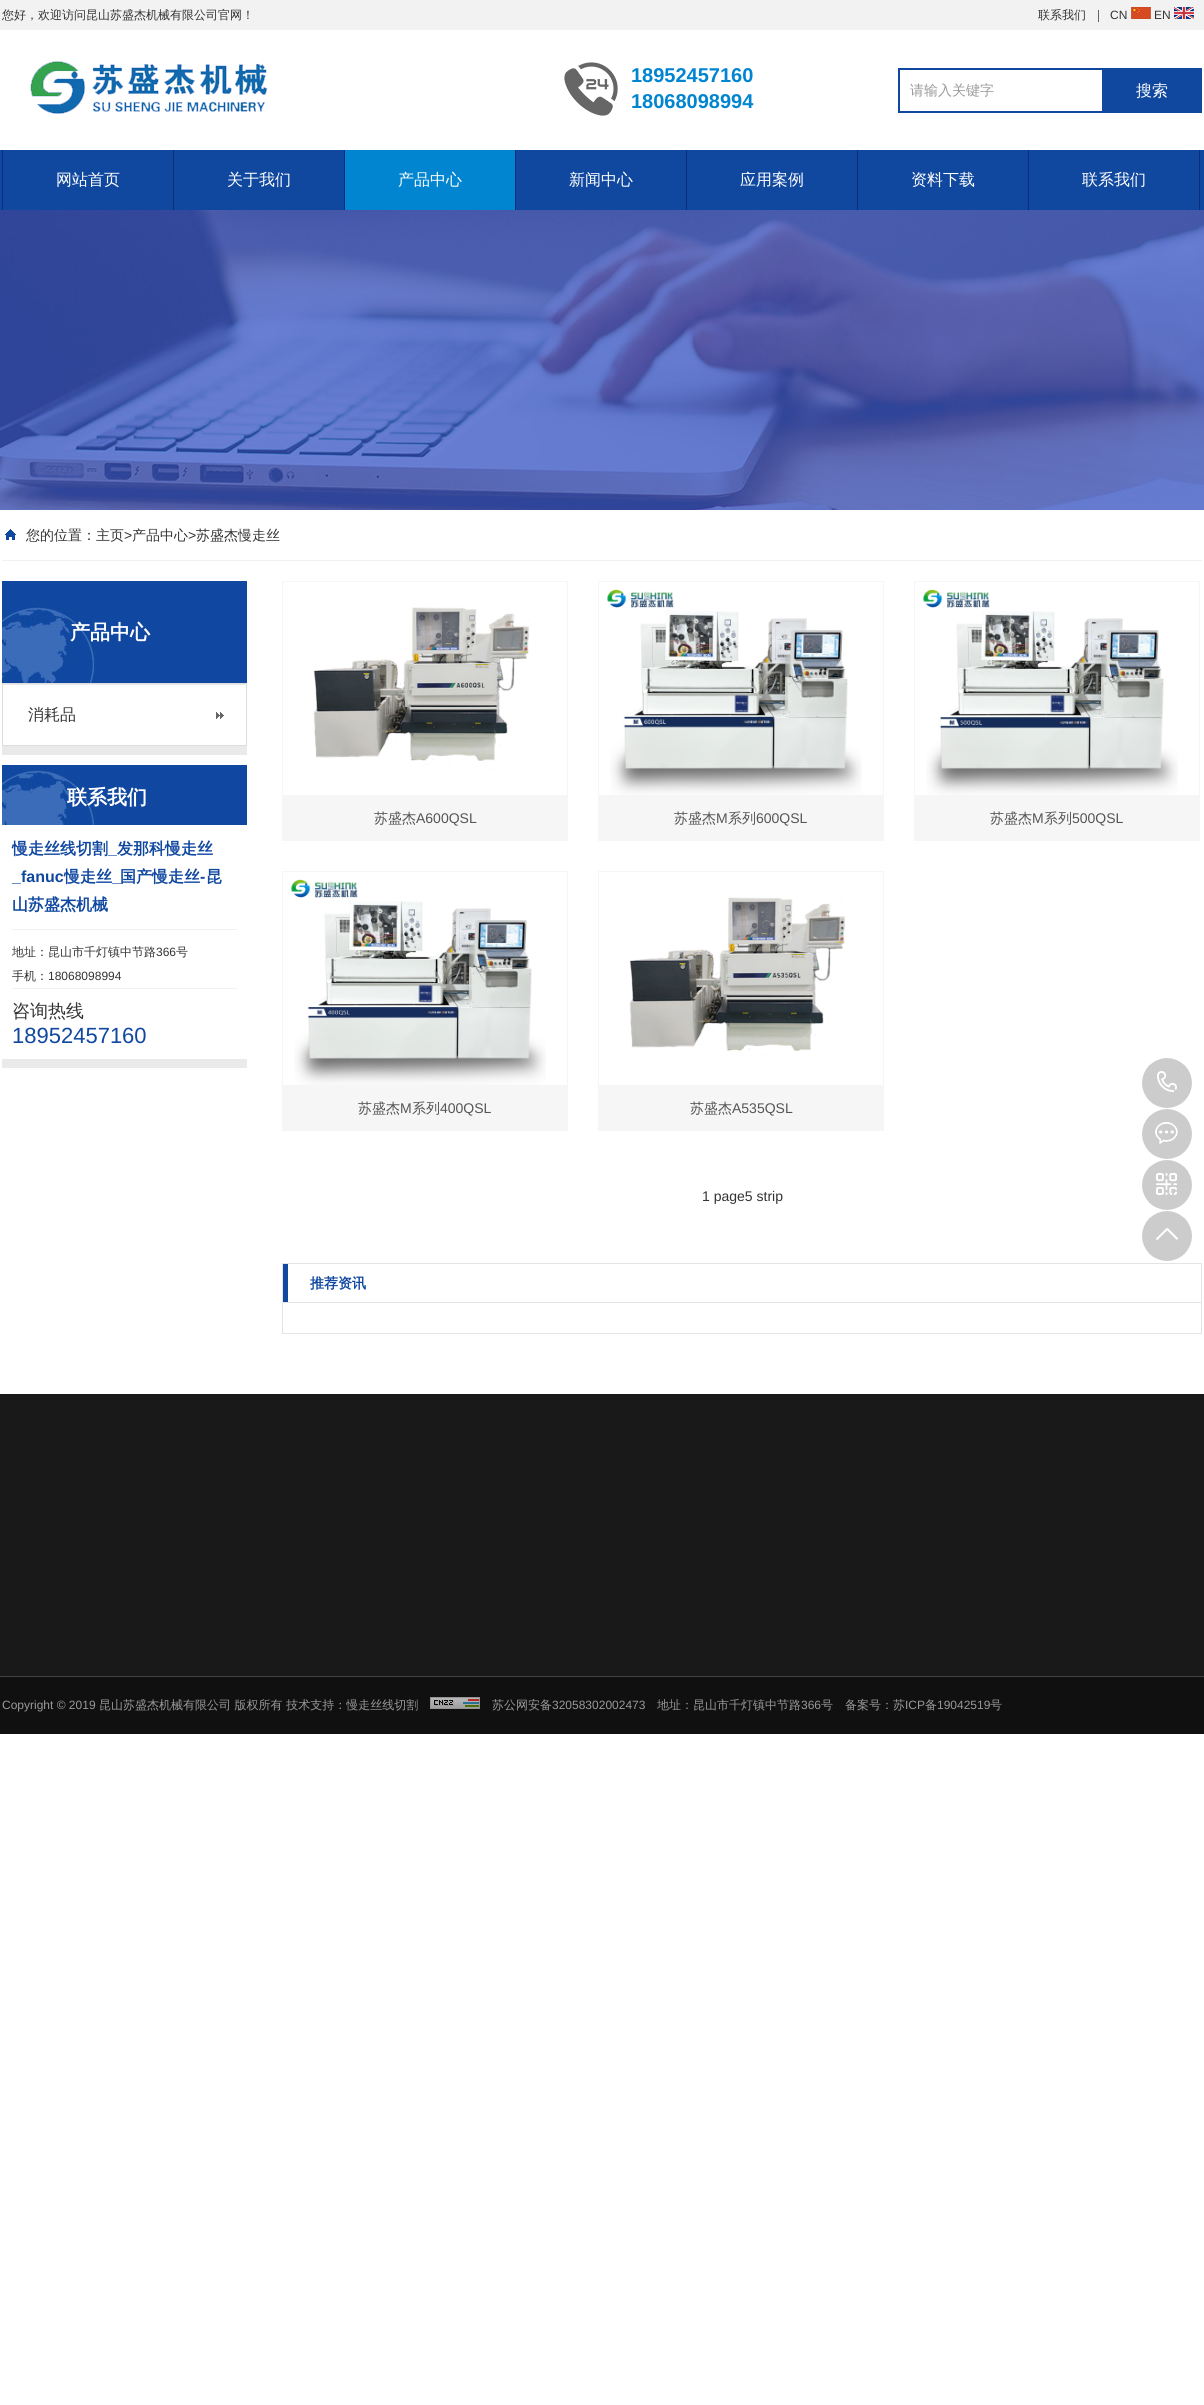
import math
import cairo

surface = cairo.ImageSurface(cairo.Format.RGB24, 1204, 2405)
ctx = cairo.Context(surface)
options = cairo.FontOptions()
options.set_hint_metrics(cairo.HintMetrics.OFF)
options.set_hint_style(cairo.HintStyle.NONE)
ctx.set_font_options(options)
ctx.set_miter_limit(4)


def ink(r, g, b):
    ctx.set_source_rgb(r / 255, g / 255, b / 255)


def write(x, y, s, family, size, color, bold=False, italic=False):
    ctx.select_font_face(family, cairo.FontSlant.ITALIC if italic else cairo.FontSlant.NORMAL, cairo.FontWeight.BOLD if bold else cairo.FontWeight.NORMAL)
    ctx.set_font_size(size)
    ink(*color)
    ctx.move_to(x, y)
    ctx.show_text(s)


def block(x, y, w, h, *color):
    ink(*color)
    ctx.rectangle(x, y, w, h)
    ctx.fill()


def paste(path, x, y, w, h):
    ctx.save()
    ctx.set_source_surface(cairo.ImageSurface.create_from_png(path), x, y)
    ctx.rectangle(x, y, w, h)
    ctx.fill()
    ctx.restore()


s1 = dict(family="WenQuanYi Zen Hei Medium", size=12, color=(51, 51, 51))
s2 = dict(family="Liberation Sans", size=12, color=(51, 51, 51))
s3 = dict(family="Liberation Sans", size=20, color=(1, 133, 208), bold=True)
s4 = dict(family="WenQuanYi Zen Hei Medium", size=14, color=(153, 153, 153))
s5 = dict(family="WenQuanYi Zen Hei Medium", size=16, color=(255, 255, 255))
s6 = dict(family="WenQuanYi Zen Hei Medium", size=14, color=(51, 51, 51))
s7 = dict(family="Liberation Sans", size=14, color=(51, 51, 51))
s8 = dict(family="WenQuanYi Zen Hei", size=20, color=(255, 255, 255), bold=True)
s9 = dict(family="WenQuanYi Zen Hei Medium", size=16, color=(51, 51, 51))
s10 = dict(family="WenQuanYi Zen Hei", size=16, color=(16, 72, 160), bold=True)
s11 = dict(family="Liberation Sans", size=16, color=(16, 72, 160), bold=True)
s12 = dict(family="WenQuanYi Zen Hei Medium", size=18, color=(51, 51, 51))
s13 = dict(family="Liberation Sans", size=22, color=(16, 72, 160))
s14 = dict(family="WenQuanYi Zen Hei Medium", size=14, color=(85, 85, 85))
s15 = dict(family="Liberation Sans", size=14, color=(85, 85, 85))
s16 = dict(family="WenQuanYi Zen Hei", size=14, color=(16, 72, 160), bold=True)
s17 = dict(family="Liberation Sans", size=12, color=(153, 153, 153))
s18 = dict(family="WenQuanYi Zen Hei Medium", size=12, color=(153, 153, 153))

ink(255, 255, 255)
ctx.paint()
block(0, 0, 1204, 30, 242, 242, 242)
write(2, 19, "您好，欢迎访问昆山苏盛杰机械有限公司官网！", **s1)
write(1038, 19, "联系我们", **s1)
block(1098, 10, 1, 12, 102, 102, 102)
write(1110, 19, "CN", **s2)
paste("pic1.png", 1131, 7, 20, 12)
write(1154, 19, "EN", **s2)
paste("pic2.png", 1174, 7, 20, 12)
paste("pic3.png", 30, 61, 238, 53)
paste("pic4.png", 564, 62, 54, 54)
write(631, 82, "18952457160", **s3)
write(631, 108, "18068098994", **s3)
ctx.rectangle(899, 69, 302, 43)
ink(16, 72, 160)
ctx.stroke()
write(910, 95, "请输入关键字", **s4)
block(1102, 70, 98, 41, 16, 72, 160)
write(1136, 96, "搜索", **s5)
block(0, 150, 1204, 60, 16, 72, 160)
block(173, 150, 1, 60, 11, 45, 126)
block(2, 150, 1, 60, 11, 45, 126)
write(56, 185, "网站首页", **s5)
block(344, 150, 1, 60, 11, 45, 126)
write(227, 185, "关于我们", **s5)
block(515, 150, 1, 60, 11, 45, 126)
block(345, 150, 170, 60, 1, 133, 208)
write(398, 185, "产品中心", **s5)
block(686, 150, 1, 60, 11, 45, 126)
write(569, 185, "新闻中心", **s5)
block(857, 150, 1, 60, 11, 45, 126)
write(740, 185, "应用案例", **s5)
block(1028, 150, 1, 60, 11, 45, 126)
write(911, 185, "资料下载", **s5)
block(1199, 150, 1, 60, 11, 45, 126)
write(1082, 185, "联系我们", **s5)
paste("pic5.png", 0, 210, 1204, 300)
block(2, 560, 1200, 1, 241, 241, 241)
paste("pic6.png", 5, 529, 11, 11)
write(26, 540, "您的位置：主页", **s6)
write(124, 540, ">", **s7)
write(132, 540, "产品中心", **s6)
write(188, 540, ">", **s7)
write(196, 540, "苏盛杰慢走丝", **s6)
block(2, 746, 245, 9, 234, 234, 234)
paste("pic7.png", 2, 581, 245, 102)
write(70, 639, "产品中心", **s8)
ctx.rectangle(2.5, 683.5, 244, 62)
ink(221, 221, 221)
ctx.set_line_width(1)
ctx.stroke()
paste("pic8.png", 216, 712, 8, 7)
block(3, 684, 243, 1, 234, 234, 234)
write(28, 720, "消耗品", **s9)
block(2, 1059, 245, 9, 234, 234, 234)
paste("pic9.png", 2, 765, 245, 60)
write(67, 804, "联系我们", **s8)
block(12, 929, 225, 1, 242, 242, 242)
write(12, 854, "慢走丝线切割", **s10)
write(108, 854, "_", **s11)
write(117, 854, "发那科慢走丝", **s10)
write(12, 882, "_fanuc", **s11)
write(64, 882, "慢走丝", **s10)
write(120, 882, "国产慢走丝", **s10)
write(200, 882, "-", **s11)
write(206, 882, "昆", **s10)
write(112, 882, "_", **s11)
write(12, 910, "山苏盛杰机械", **s10)
block(12, 988, 225, 1, 242, 242, 242)
write(12, 956, "地址：昆山市千灯镇中节路", **s1)
write(156, 956, "366", **s2)
write(176, 956, "号", **s1)
write(12, 980, "手机：", **s1)
write(48, 980, "18068098994", **s2)
write(12, 1017, "咨询热线", **s12)
write(12, 1043, "18952457160", **s13)
block(282, 581, 286, 260, 246, 246, 246)
paste("pic10.png", 283, 582, 284, 213)
write(374, 823, "苏盛杰", **s14)
write(416, 823, "A600QSL", **s15)
block(598, 581, 286, 260, 246, 246, 246)
paste("pic11.png", 599, 582, 284, 213)
write(674, 823, "苏盛杰", **s14)
write(716, 823, "M", **s15)
write(728, 823, "系列", **s14)
write(756, 823, "600QSL", **s15)
block(914, 581, 286, 260, 246, 246, 246)
paste("pic12.png", 915, 582, 284, 213)
write(990, 823, "苏盛杰", **s14)
write(1032, 823, "M", **s15)
write(1044, 823, "系列", **s14)
write(1072, 823, "500QSL", **s15)
block(282, 871, 286, 260, 246, 246, 246)
paste("pic13.png", 283, 872, 284, 213)
write(358, 1113, "苏盛杰", **s14)
write(400, 1113, "M", **s15)
write(412, 1113, "系列", **s14)
write(440, 1113, "400QSL", **s15)
block(598, 871, 286, 260, 246, 246, 246)
paste("pic14.png", 599, 872, 284, 213)
write(690, 1113, "苏盛杰", **s14)
write(732, 1113, "A535QSL", **s15)
write(702, 1201, "1 page5 strip", **s7)
ctx.rectangle(282.5, 1263.5, 919, 39)
ink(228, 228, 228)
ctx.stroke()
block(283, 1264, 5, 38, 16, 72, 160)
write(310, 1288, "推荐资讯", **s16)
block(1201, 1303, 1, 31, 228, 228, 228)
block(282, 1333, 920, 1, 228, 228, 228)
block(282, 1303, 1, 31, 228, 228, 228)
paste("pic15.png", 1142, 1058, 50, 50)
paste("pic16.png", 1157, 1071, 20, 21)
paste("pic15.png", 1142, 1109, 50, 50)
paste("pic17.png", 1155, 1122, 23, 22)
paste("pic15.png", 1142, 1160, 50, 50)
paste("pic18.png", 1156, 1173, 21, 22)
paste("pic15.png", 1142, 1211, 50, 50)
paste("pic19.png", 1156, 1228, 22, 12)
block(0, 1394, 1204, 282, 25, 25, 25)
block(0, 1677, 1204, 57, 16, 16, 16)
block(0, 1676, 1204, 1, 67, 67, 67)
write(2, 1709, "Copyright © 2019", **s17)
write(99, 1709, "昆山苏盛杰机械有限公司 版权所有 技术支持：慢走丝线切割", **s18)
paste("pic20.png", 430, 1697, 50, 12)
write(492, 1709, "苏公网安备", **s18)
write(552, 1709, "32058302002473", **s17)
write(657, 1709, "地址：昆山市千灯镇中节路", **s18)
write(801, 1709, "366", **s17)
write(821, 1709, "号　备案号：苏", **s18)
write(905, 1709, "ICP", **s17)
write(925, 1709, "备", **s18)
write(937, 1709, "19042519", **s17)
write(990, 1709, "号", **s18)
surface.write_to_png("screenshot.png")
